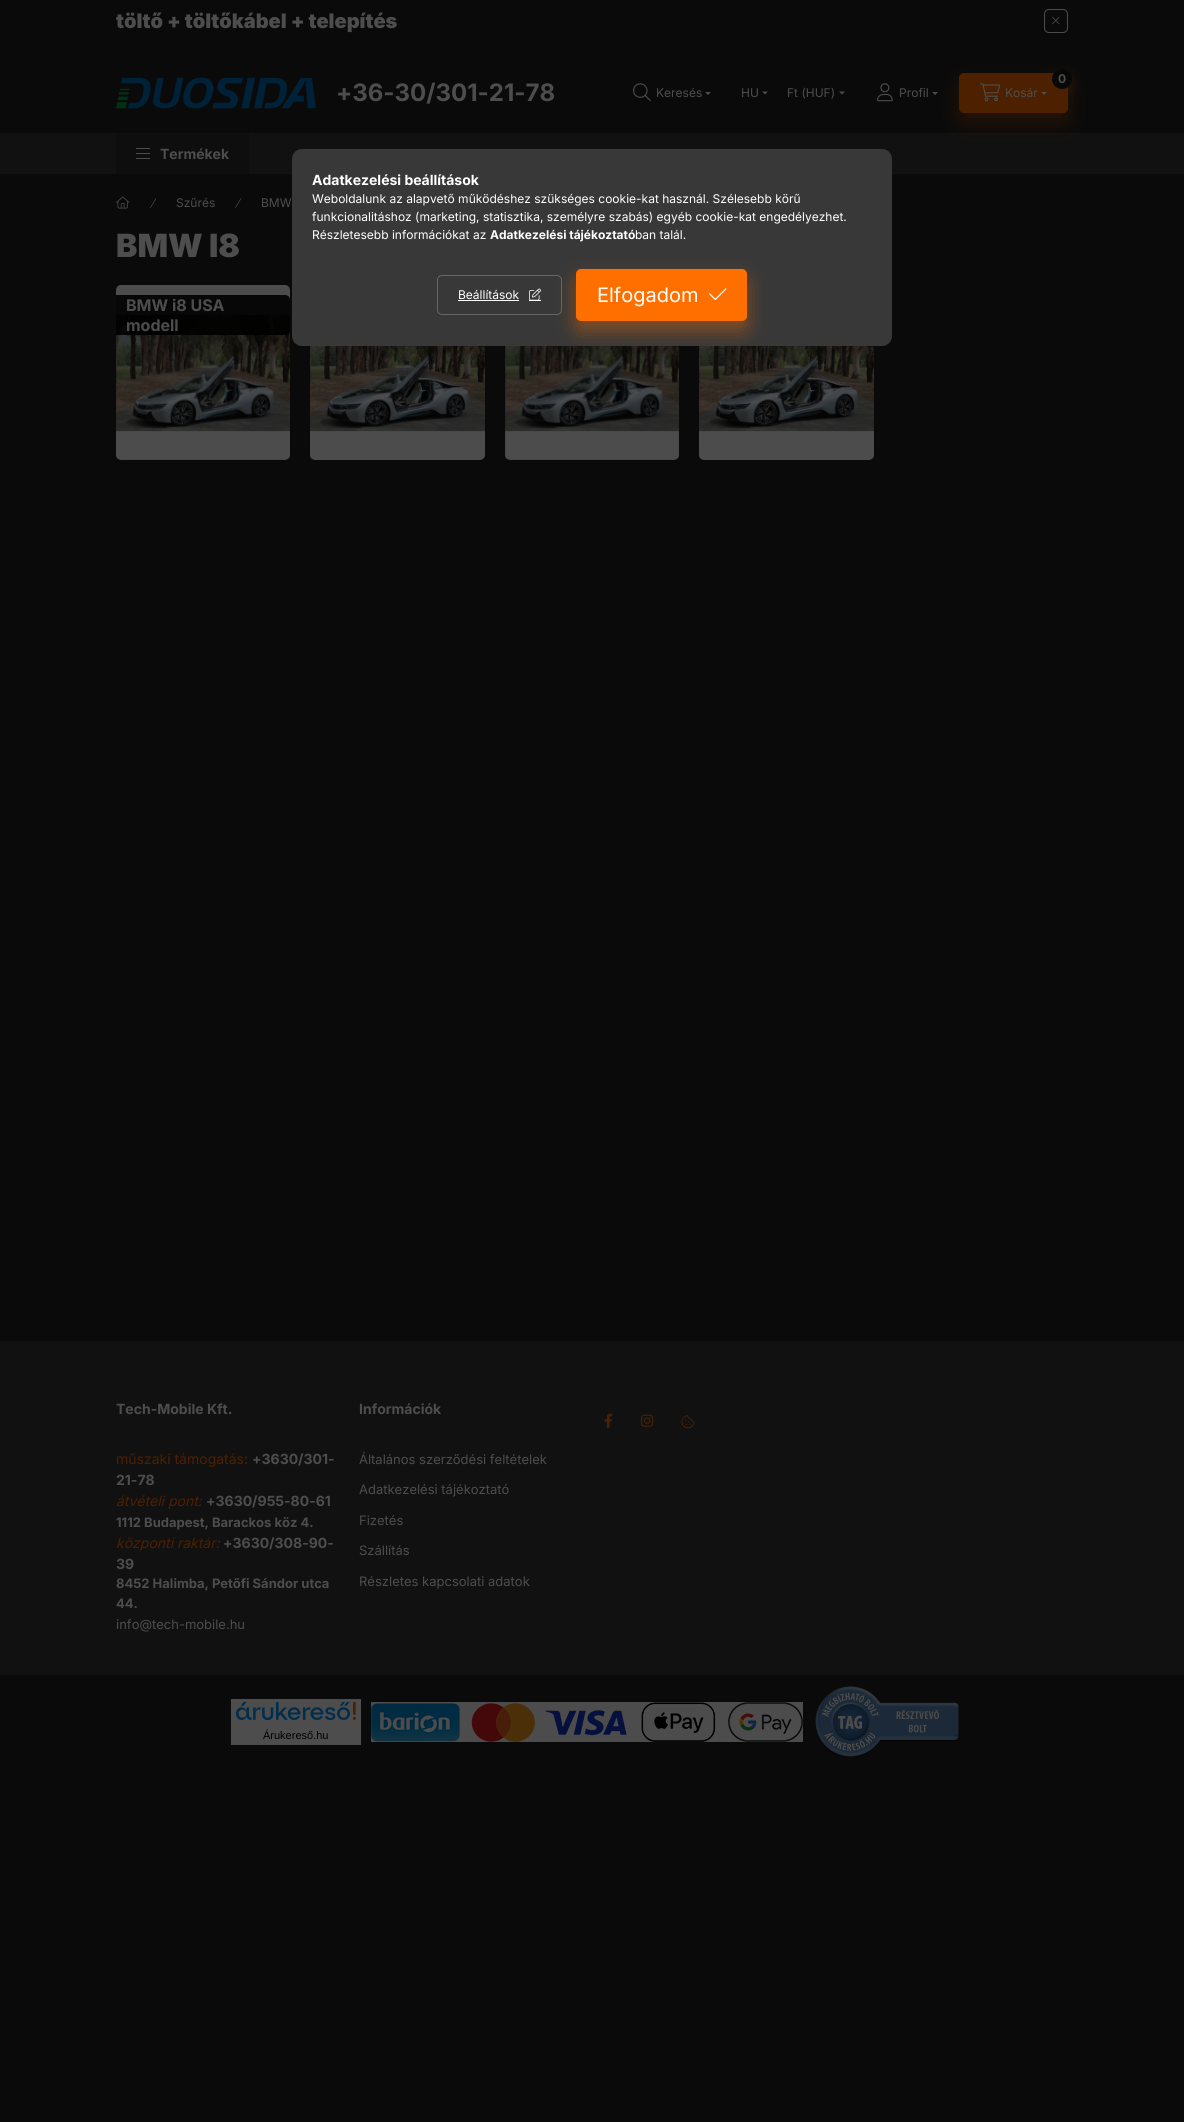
import math
import cairo

surface = cairo.ImageSurface(cairo.Format.RGB24, 1184, 2122)
ctx = cairo.Context(surface)
options = cairo.FontOptions()
options.set_hint_metrics(cairo.HintMetrics.OFF)
options.set_hint_style(cairo.HintStyle.NONE)
ctx.set_font_options(options)
ctx.set_miter_limit(4)


def ink(r, g, b):
    ctx.set_source_rgb(r / 255, g / 255, b / 255)


def write(x, y, s, family, size, color, bold=False, italic=False):
    ctx.select_font_face(family, cairo.FontSlant.ITALIC if italic else cairo.FontSlant.NORMAL, cairo.FontWeight.BOLD if bold else cairo.FontWeight.NORMAL)
    ctx.set_font_size(size)
    ink(*color)
    ctx.move_to(x, y)
    ctx.show_text(s)


def block(x, y, w, h, *color):
    ink(*color)
    ctx.rectangle(x, y, w, h)
    ctx.fill()


def round_path(x, y, w, h, r):
    ctx.new_sub_path()
    for i, (u, v) in enumerate([(x + w - r, y + h - r), (x + r, y + h - r), (x + r, y + r), (x + w - r, y + r)]):
        ctx.arc(u, v, r, i * math.pi / 2, (i + 1) * math.pi / 2)
    ctx.close_path()


def blur_box(x, y, w, h, r, blur, alpha):
    ctx.push_group_with_content(cairo.Content.ALPHA)
    ctx.set_operator(cairo.Operator.SOURCE)
    for i in range(15, -16, -2):
        e = blur * i / 6
        if min(w, h) + 2 * e > 0:
            ctx.set_source_rgba(0, 0, 0, alpha * math.erfc((i - 1) / 8.5) / 2)
            round_path(x - e, y - e, w + 2 * e, h + 2 * e, max(0, min(r + e + blur * .6, min(w, h) / 2 + e)))
            ctx.fill()
    ctx.mask(ctx.pop_group())


def paste(path, x, y, w, h):
    ctx.save()
    ctx.set_source_surface(cairo.ImageSurface.create_from_png(path), x, y)
    ctx.rectangle(x, y, w, h)
    ctx.fill()
    ctx.restore()


s1 = dict(family="Inter Black", size=20, color=(77, 77, 77))
s2 = dict(family="Inter", size=24, color=(77, 77, 77), bold=True)
s3 = dict(family="Inter", size=12, color=(77, 77, 77))
s4 = dict(family="Inter", size=12, color=(77, 77, 77), bold=True)
s5 = dict(family="Inter", size=14, color=(77, 77, 77), bold=True)
s6 = dict(family="Inter Black", size=32, color=(77, 77, 77))
s7 = dict(family="Inter", size=16, color=(77, 77, 77), bold=True)
s8 = dict(family="Inter", size=14, color=(77, 31, 0))
s9 = dict(family="Inter", size=14, color=(77, 31, 0), italic=True)
s10 = dict(family="Inter", size=13, color=(77, 77, 77), bold=True)
s11 = dict(family="Inter", size=13, color=(77, 77, 77))
s12 = dict(family="Liberation Sans", size=11, color=(0, 0, 0))
s13 = dict(family="Inter", size=14, color=(255, 255, 255), bold=True)
s14 = dict(family="Inter", size=12, color=(255, 255, 255))
s15 = dict(family="Inter", size=12, color=(255, 255, 255), bold=True)
s16 = dict(family="Inter", size=20, color=(255, 255, 255))

ink(10, 10, 10)
ctx.paint()
write(116, 28, "töltő + töltőkábel + telepítés", **s1)
round_path(1044.5, 9.5, 23, 23, 4.5)
ctx.set_line_width(1)
ctx.stroke()
paste("pic1.png", 1052, 16, 8, 9)
paste("pic2.png", 116, 77, 200, 32)
write(336, 101, "+36-30/301-21-78", **s2)
paste("pic3.png", 633, 83, 18, 19)
write(656, 97, "Keresés", **s3)
ctx.new_path()
ctx.move_to(705, 92)
ctx.line_to(711, 92)
ctx.line_to(708, 95)
ctx.close_path()
ctx.move_to(762, 91.5)
ctx.line_to(768, 91.5)
ctx.line_to(765, 94.5)
ctx.close_path()
ctx.fill()
write(741, 97, "HU", **s3)
write(787, 97, "Ft (HUF)", **s3)
ctx.new_path()
ctx.move_to(839, 91.5)
ctx.line_to(845, 91.5)
ctx.line_to(842, 94.5)
ctx.close_path()
ctx.fill()
paste("pic4.png", 877, 83, 16, 19)
write(899, 97, "Profil", **s3)
block(0, 133, 1184, 41, 17, 17, 17)
ink(77, 33, 0)
blur_box(959, 83, 109, 40, 5, 10, 0.4)
ink(77, 77, 77)
ctx.new_path()
ctx.move_to(932, 92)
ctx.line_to(938, 92)
ctx.line_to(935, 95)
ctx.close_path()
ctx.fill()
ink(77, 33, 0)
round_path(959, 73, 109, 40, 5)
ctx.fill()
ink(77, 33, 0)
blur_box(1052, 74, 20, 20, 10, 5, 0.4)
ink(8, 8, 8)
ctx.arc(1062, 79, 10, 0, 2 * math.pi)
ctx.fill()
write(1058, 83, "0", **s4)
paste("pic5.png", 980, 83, 21, 19)
write(1005, 97, "Kosár", **s3)
ctx.new_path()
ctx.move_to(1041, 92)
ctx.line_to(1047, 92)
ctx.line_to(1044, 95)
ctx.close_path()
ctx.fill()
block(116, 133, 133, 41, 14, 14, 14)
block(136, 148, 14, 1, 77, 77, 77)
block(136, 153, 14, 1, 77, 77, 77)
block(136, 158, 14, 1, 77, 77, 77)
write(160, 159, "Termékek", **s5)
paste("pic6.png", 116, 196, 14, 13)
paste("pic7.png", 150, 198, 7, 11)
write(176, 207, "Szűrés", **s3)
paste("pic7.png", 235, 198, 7, 11)
write(261, 207, "BMW", **s3)
write(116, 257, "BMW I8", **s6)
paste("pic8.png", 116, 285, 174, 175)
ctx.set_source_rgba(0, 0, 0, 0.9)
ctx.new_path()
ctx.move_to(116, 295)
ctx.line_to(285, 295)
ctx.curve_to(288, 295, 290, 297, 290, 300)
ctx.line_to(290, 330)
ctx.curve_to(290, 333, 288, 335, 285, 335)
ctx.line_to(116, 335)
ctx.close_path()
ctx.fill()
write(126, 311, "BMW i8 USA", **s7)
write(126, 331, "modell", **s7)
paste("pic9.png", 310, 346, 175, 114)
paste("pic10.png", 505, 346, 174, 114)
paste("pic11.png", 699, 346, 175, 114)
block(0, 1341, 1184, 334, 17, 17, 17)
write(116, 1414, "Tech-Mobile Kft.", **s5)
write(116, 1464, "műszaki támogatás:", **s8)
write(252, 1464, "+3630/301-", **s5)
write(116, 1485, "21-78", **s5)
write(116, 1506, "átvételi pont:", **s9)
write(206, 1506, "+3630/955-80-61", **s5)
write(116, 1527, "1112 Budapest, Barackos köz 4.", **s10)
write(116, 1548, "központi raktár:", **s9)
write(223, 1548, "+3630/308-90-", **s5)
write(116, 1569, "39", **s5)
write(116, 1588, "8452 Halimba, Petőfi Sándor utca", **s10)
write(116, 1608, "44.", **s10)
write(116, 1629, "info@tech-mobile.hu", **s11)
write(359, 1414, "Információk", **s5)
write(359, 1464, "Általános szerződési feltételek", **s11)
write(359, 1494, "Adatkezelési tájékoztató", **s11)
write(359, 1525, "Fizetés", **s11)
write(359, 1555, "Szállítás", **s11)
write(359, 1586, "Részletes kapcsolati adatok", **s11)
paste("pic12.png", 604, 1413, 9, 15)
paste("pic13.png", 641, 1414, 13, 13)
paste("pic14.png", 681, 1415, 14, 14)
block(231, 1699, 130, 46, 77, 77, 77)
paste("pic15.png", 236, 1702, 120, 19)
write(263, 1739, "Árukereső.hu", **s12)
paste("pic16.png", 371, 1702, 432, 40)
paste("pic17.png", 815, 1686, 144, 72)
ink(56, 56, 56)
round_path(292, 149, 600, 197, 10)
ctx.fill()
write(312, 185, "Adatkezelési beállítások", **s13)
write(312, 203, "Weboldalunk az alapvető működéshez szükséges cookie-kat használ. Szélesebb körű", **s14)
write(312, 221, "funkcionalitáshoz (marketing, statisztika, személyre szabás) egyéb cookie-kat engedélyezhet.", **s14)
write(312, 239, "Részletesebb információkat az", **s14)
write(490, 239, "Adatkezelési tájékoztató", **s15)
write(635, 239, "ban talál.", **s14)
round_path(437.5, 275.5, 124, 39, 4.5)
ink(102, 102, 102)
ctx.stroke()
write(458, 299, "Beállítások", **s14)
block(458, 300, 61, 1, 255, 255, 255)
paste("pic18.png", 529, 288, 12, 12)
block(529, 300, 12, 1, 255, 255, 255)
ctx.save()
round_path(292, 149, 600, 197, 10)
ctx.clip()
ink(255, 111, 0)
blur_box(576, 279, 171, 52, 5, 10, 0.4)
ctx.restore()
ink(255, 111, 0)
round_path(576.5, 269.5, 170, 51, 4.5)
ctx.fill_preserve()
ctx.stroke()
write(597, 302, "Elfogadom", **s16)
paste("pic19.png", 709, 288, 18, 13)
surface.write_to_png("screenshot.png")
